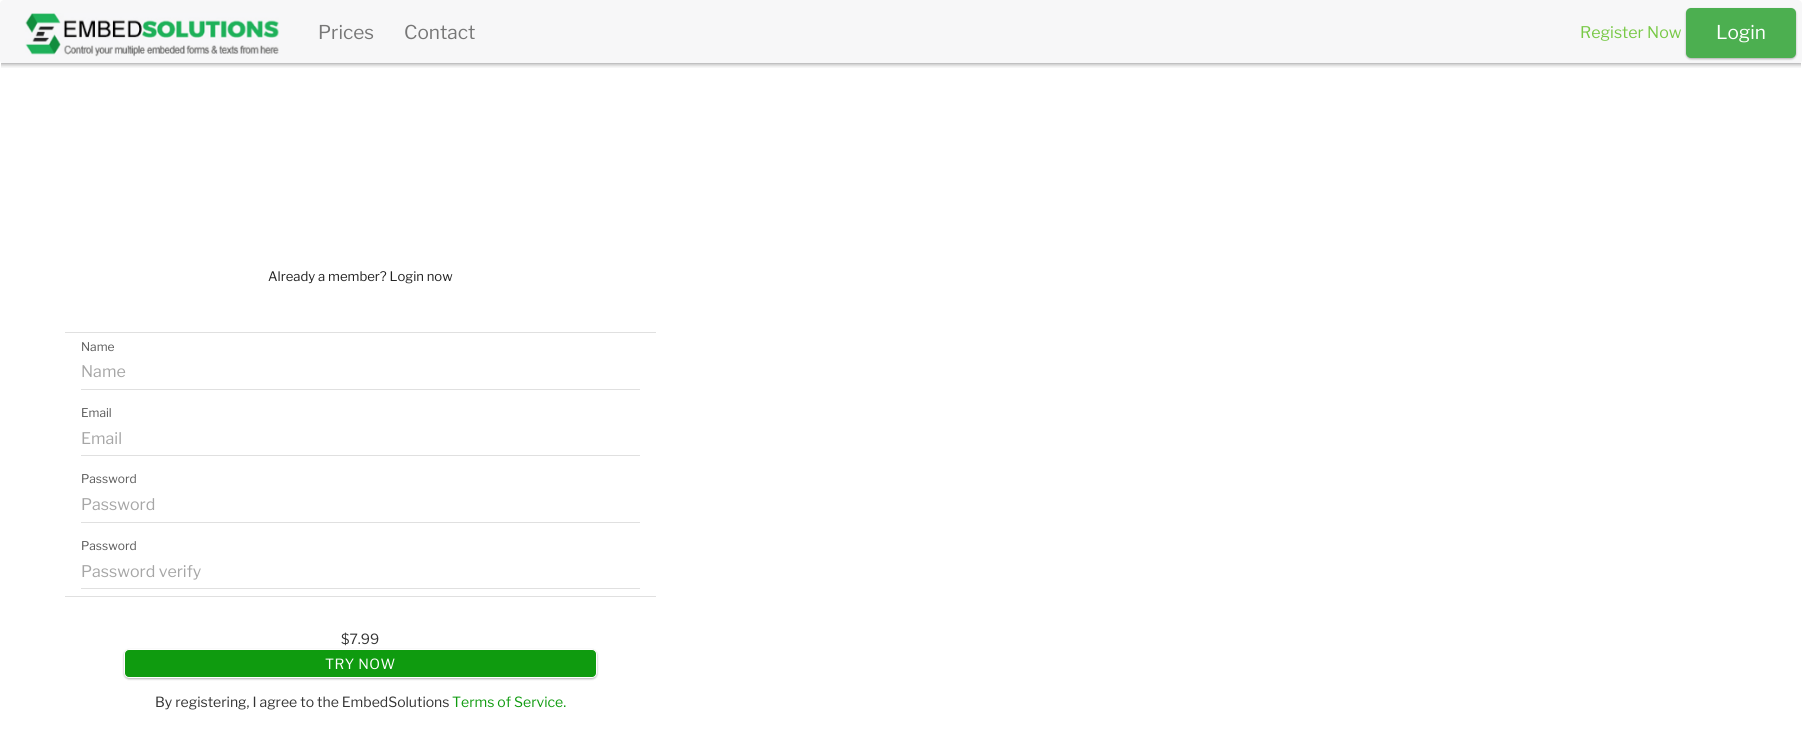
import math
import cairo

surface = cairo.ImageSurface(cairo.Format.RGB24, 1802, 744)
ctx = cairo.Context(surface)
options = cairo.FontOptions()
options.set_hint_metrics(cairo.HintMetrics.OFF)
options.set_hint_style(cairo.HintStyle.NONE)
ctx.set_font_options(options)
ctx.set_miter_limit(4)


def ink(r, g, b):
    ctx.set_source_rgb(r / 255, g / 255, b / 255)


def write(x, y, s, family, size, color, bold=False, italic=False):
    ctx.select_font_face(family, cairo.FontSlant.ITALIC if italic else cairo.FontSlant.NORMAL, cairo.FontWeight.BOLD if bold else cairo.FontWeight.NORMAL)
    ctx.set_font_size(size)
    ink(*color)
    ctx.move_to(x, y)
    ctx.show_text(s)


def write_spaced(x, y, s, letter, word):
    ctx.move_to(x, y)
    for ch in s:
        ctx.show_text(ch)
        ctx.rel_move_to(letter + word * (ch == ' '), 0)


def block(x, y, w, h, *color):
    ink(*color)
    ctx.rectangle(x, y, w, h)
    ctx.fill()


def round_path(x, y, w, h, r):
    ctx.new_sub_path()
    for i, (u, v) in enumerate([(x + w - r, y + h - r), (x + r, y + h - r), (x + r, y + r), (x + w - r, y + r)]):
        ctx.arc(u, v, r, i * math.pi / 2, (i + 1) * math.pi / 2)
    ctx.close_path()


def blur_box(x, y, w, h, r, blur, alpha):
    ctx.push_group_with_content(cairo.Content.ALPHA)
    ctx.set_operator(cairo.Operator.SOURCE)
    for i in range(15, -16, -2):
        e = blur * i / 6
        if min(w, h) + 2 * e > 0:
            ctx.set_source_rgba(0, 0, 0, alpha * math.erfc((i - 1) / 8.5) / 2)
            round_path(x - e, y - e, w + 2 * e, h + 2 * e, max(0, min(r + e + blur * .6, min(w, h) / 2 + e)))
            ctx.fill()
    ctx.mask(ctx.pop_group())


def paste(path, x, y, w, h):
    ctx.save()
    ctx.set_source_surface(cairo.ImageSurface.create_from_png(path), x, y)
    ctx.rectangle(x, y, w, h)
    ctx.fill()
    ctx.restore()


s1 = dict(family="Libre Franklin", size=19, color=(119, 119, 119))
s2 = dict(family="Libre Franklin", size=16, color=(120, 201, 70))
s3 = dict(family="Libre Franklin", size=19, color=(255, 255, 255))
s4 = dict(family="Libre Franklin", size=13.1, color=(33, 33, 33))
s5 = dict(family="Libre Franklin", size=12, color=(89, 89, 89))
s6 = dict(family="Libre Franklin", size=16, color=(166, 166, 166))
s7 = dict(family="Libre Franklin", size=14, color=(51, 51, 51))
s8 = dict(family="Libre Franklin", size=14, color=(15, 155, 15))

ink(255, 255, 255)
ctx.paint()
ink(247, 247, 248)
round_path(0, 0, 1802, 64, 4)
ctx.fill()
paste("pic1.png", 25, 13, 254, 44)
write(318, 39, "Prices", **s1)
write(404, 39, "Contact", **s1)
write(1580, 38, "Register Now", **s2)
ink(0, 0, 0)
blur_box(1686, 9, 110, 50, 5, 1, 0.3)
ink(76, 175, 80)
round_path(1686, 8, 110, 50, 5)
ctx.fill()
write(1716, 39, "Login", **s3)
gradient = cairo.LinearGradient(901, 63, 901, 71)
gradient.add_color_stop_rgba(0, 0, 0, 0, 0.25)
gradient.add_color_stop_rgba(0.4, 0, 0, 0, 0.08)
gradient.add_color_stop_rgba(0.5, 0, 0, 0, 0.04)
gradient.add_color_stop_rgba(0.9, 0, 0, 0, 0)
gradient.add_color_stop_rgba(1, 0, 0, 0, 0)
ctx.set_source(gradient)
ctx.rectangle(1, 63, 1800, 5)
ctx.fill()
write(268, 281, "Already a member? Login now", **s4)
block(65, 332, 591, 1, 224, 224, 224)
write(81, 351, "Name", **s5)
write(81, 377, "Name", **s6)
block(81, 389, 559, 1, 224, 224, 224)
write(81, 417, "Email", **s5)
write(81, 444, "Email", **s6)
block(81, 455, 559, 1, 224, 224, 224)
write(81, 483, "Password", **s5)
write(81, 510, "Password", **s6)
block(81, 522, 559, 1, 224, 224, 224)
write(81, 550, "Password", **s5)
write(81, 577, "Password verify", **s6)
block(81, 588, 559, 1, 224, 224, 224)
block(65, 596, 591, 1, 224, 224, 224)
write(341, 644, "$7.99", **s7)
ink(0, 0, 0)
blur_box(124, 650, 473, 29, 5, 1, 0.3)
ink(15, 155, 15)
round_path(124.5, 649.5, 472, 28, 4.5)
ctx.fill_preserve()
ink(255, 255, 255)
ctx.set_line_width(1)
ctx.stroke()
write_spaced(325, 669, "TRY NOW", 0.5, 0)
write(155, 707, "By registering, I agree to the EmbedSolutions", **s7)
write(452, 707, "Terms of Service.", **s8)
surface.write_to_png("screenshot.png")
